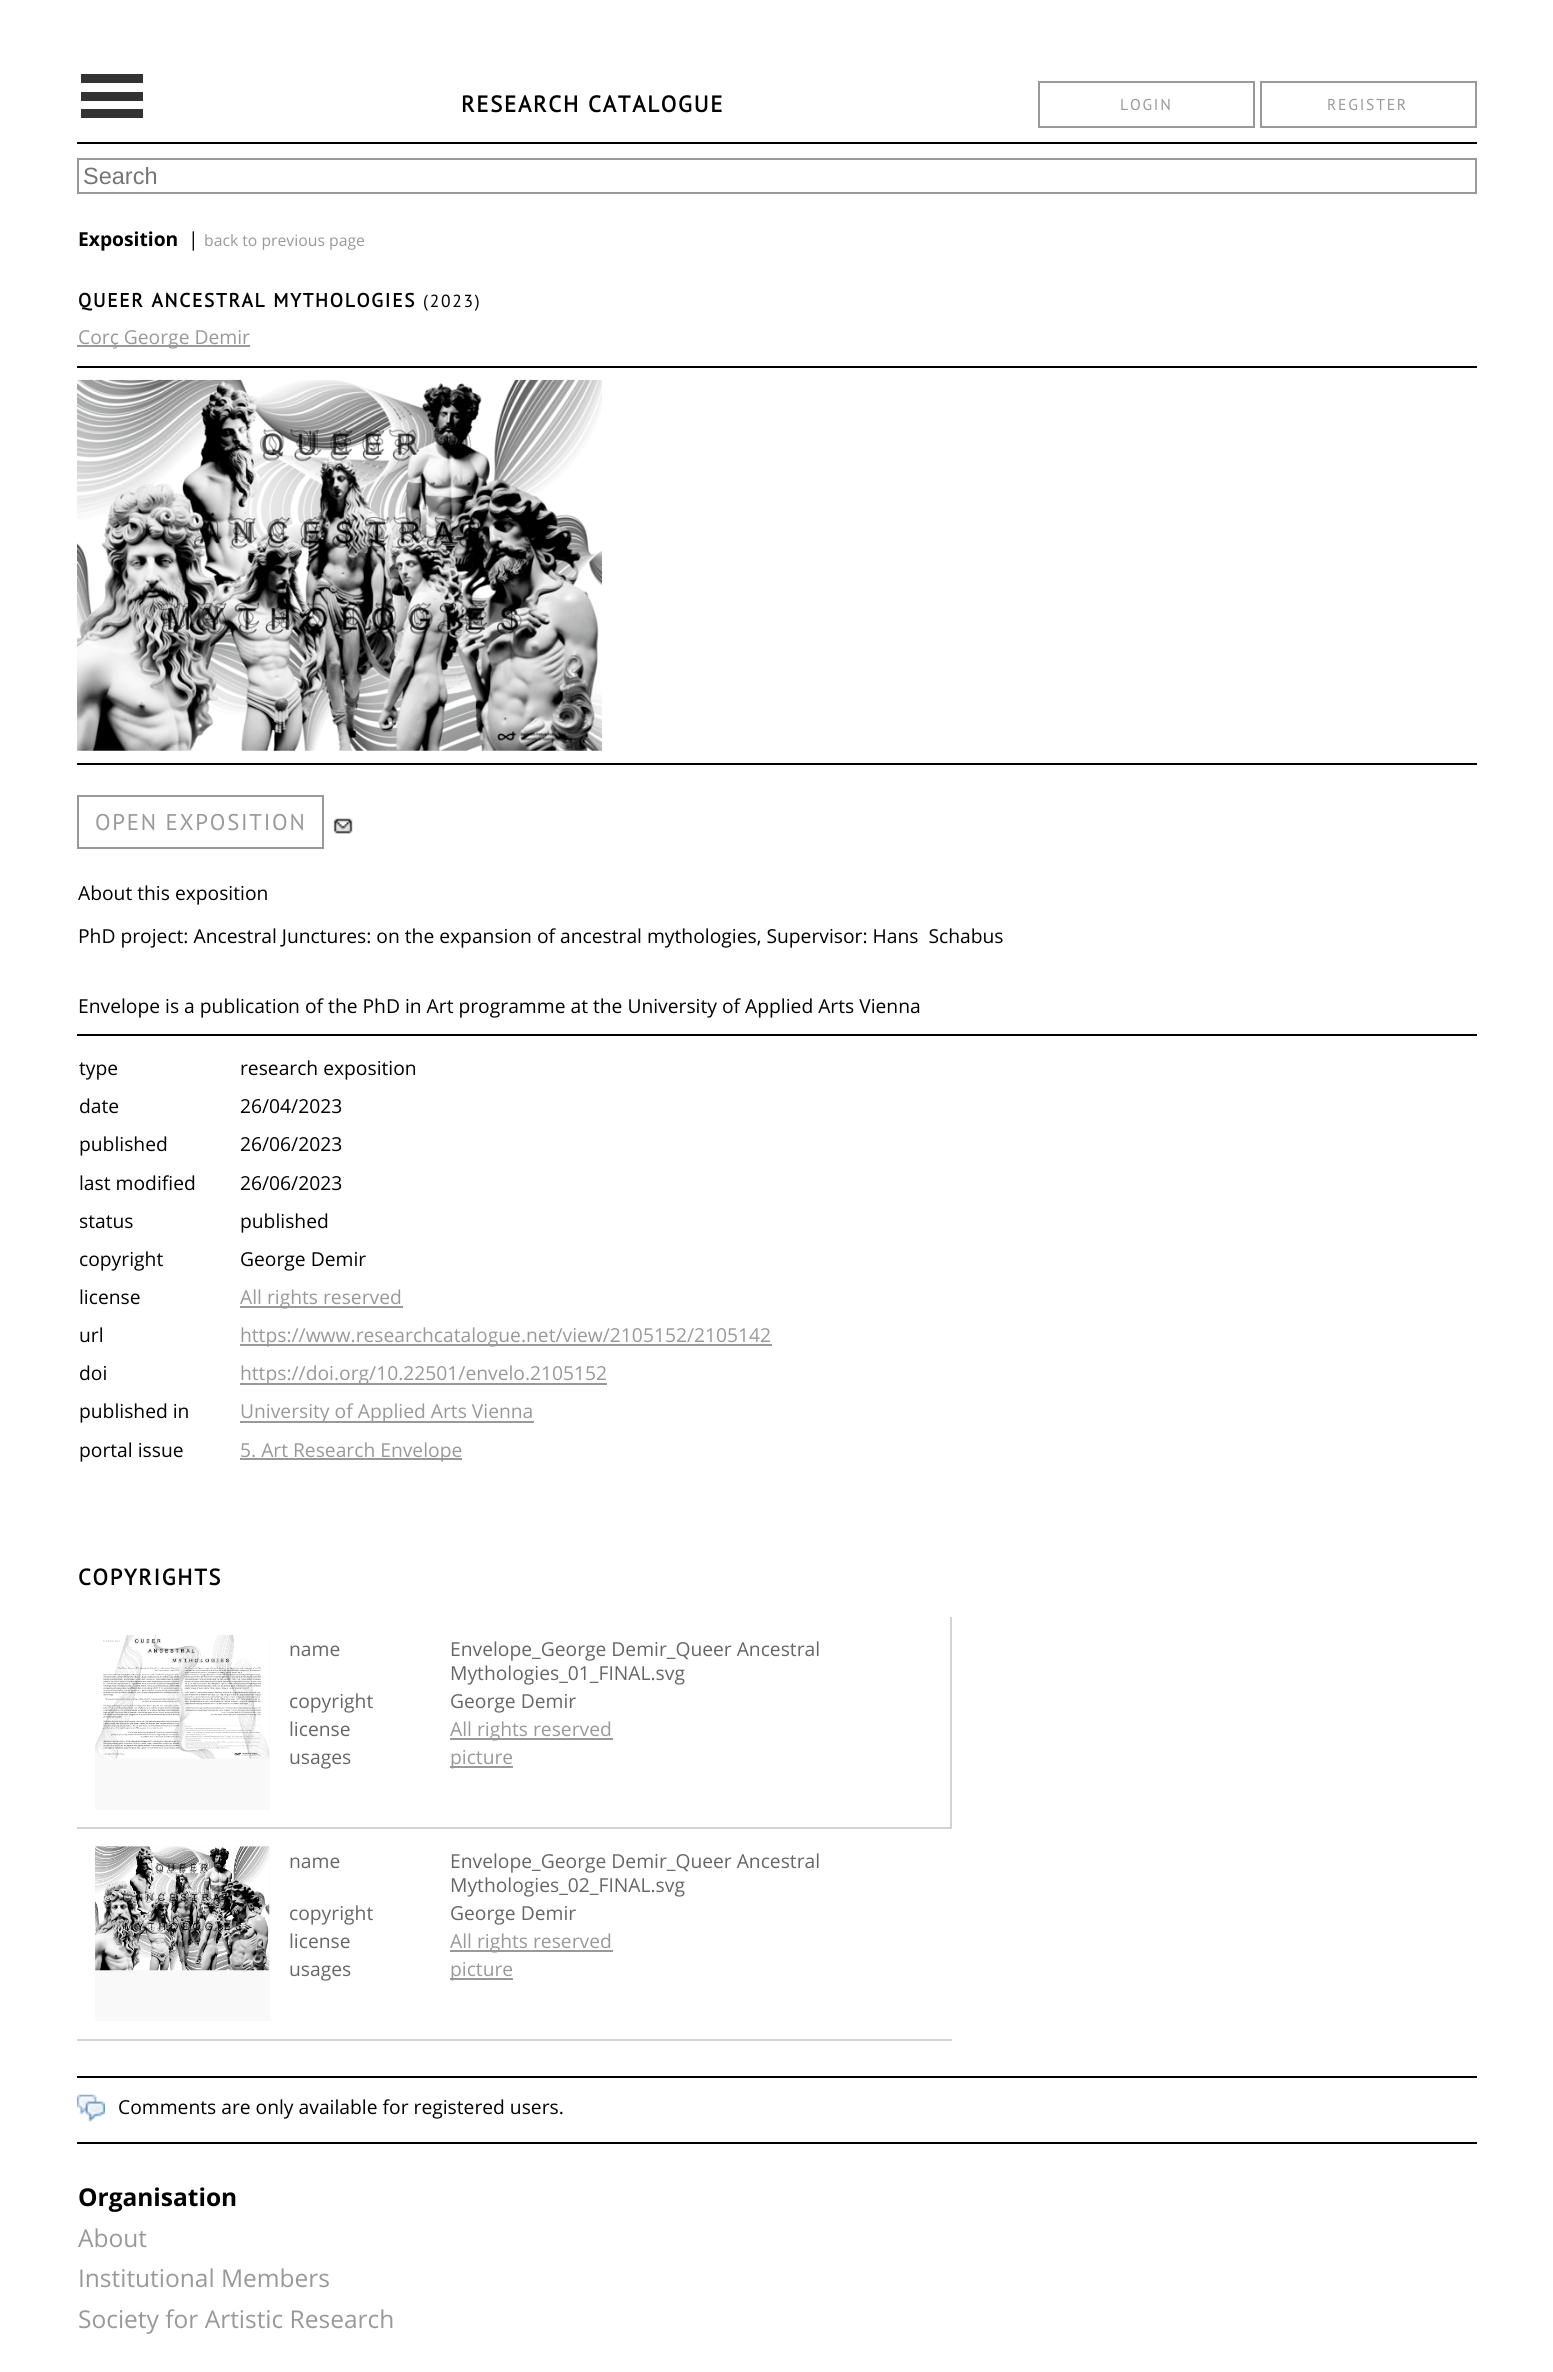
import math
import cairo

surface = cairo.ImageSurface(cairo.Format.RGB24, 1553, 2372)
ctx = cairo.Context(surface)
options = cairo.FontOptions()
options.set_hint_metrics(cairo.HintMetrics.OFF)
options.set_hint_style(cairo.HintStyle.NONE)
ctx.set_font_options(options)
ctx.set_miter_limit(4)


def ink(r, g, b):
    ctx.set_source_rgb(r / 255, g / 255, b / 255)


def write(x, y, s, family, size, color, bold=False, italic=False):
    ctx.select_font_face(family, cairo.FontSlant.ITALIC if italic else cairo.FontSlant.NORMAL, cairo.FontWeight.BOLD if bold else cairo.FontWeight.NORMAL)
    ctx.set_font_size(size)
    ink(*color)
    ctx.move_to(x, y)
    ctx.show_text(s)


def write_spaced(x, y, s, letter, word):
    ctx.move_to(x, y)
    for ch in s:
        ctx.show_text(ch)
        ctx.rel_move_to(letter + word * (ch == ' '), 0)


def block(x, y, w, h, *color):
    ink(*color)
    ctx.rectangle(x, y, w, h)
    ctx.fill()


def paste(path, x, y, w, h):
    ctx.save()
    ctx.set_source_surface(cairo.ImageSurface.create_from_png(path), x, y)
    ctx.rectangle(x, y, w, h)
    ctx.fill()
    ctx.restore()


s1 = dict(family="Liberation Sans", size=23.5, color=(117, 117, 117))
s2 = dict(family="Open Sans", size=19.25, color=(0, 0, 0), bold=True)
s3 = dict(family="Open Sans", size=19.25, color=(0, 0, 0))
s4 = dict(family="Open Sans", size=15.75, color=(153, 153, 153))
s5 = dict(family="Open Sans", size=19.25, color=(153, 153, 153))
s6 = dict(family="Open Sans", size=19.25, color=(102, 102, 102))
s7 = dict(family="Open Sans", size=24.5, color=(0, 0, 0), bold=True)
s8 = dict(family="Open Sans", size=24.5, color=(153, 153, 153))

ink(255, 255, 255)
ctx.paint()
block(77, 142, 1400, 2, 0, 0, 0)
block(81, 74, 62, 9, 51, 51, 51)
block(81, 92, 62, 9, 51, 51, 51)
block(81, 109, 62, 9, 51, 51, 51)
ctx.select_font_face("PT Sans", cairo.FontSlant.NORMAL, cairo.FontWeight.BOLD)
ctx.set_font_size(22.75)
ink(0, 0, 0)
write_spaced(461, 112, "RESEARCH CATALOGUE", 1.75, 0)
ctx.rectangle(1039, 82, 215, 45)
ink(153, 153, 153)
ctx.stroke()
ctx.select_font_face("PT Sans")
ctx.set_font_size(15.75)
write_spaced(1120, 110, "LOGIN", 1.75, 0)
ctx.rectangle(1261, 82, 215, 45)
ctx.stroke()
write_spaced(1327, 110, "REGISTER", 1.75, 0)
ctx.rectangle(78, 159, 1398, 34)
ctx.stroke()
write(83, 184, "Search", **s1)
write(78, 246, "Exposition", **s2)
write(188, 246, "|", **s3)
write(204, 246, "back to previous page", **s4)
ctx.select_font_face("PT Sans", cairo.FontSlant.NORMAL, cairo.FontWeight.BOLD)
ctx.set_font_size(19.25)
ink(0, 0, 0)
write_spaced(78, 307, "QUEER ANCESTRAL MYTHOLOGIES", 1.75, 0)
ctx.select_font_face("PT Sans")
ctx.set_font_size(17.5)
write_spaced(423, 307, "(2023)", 1.75, 0)
block(77, 345, 173, 2, 153, 153, 153)
write(78, 344, "Corç George Demir", **s5)
block(77, 366, 1400, 2, 0, 0, 0)
paste("pic1.png", 77, 379, 525, 372)
block(77, 763, 1400, 2, 0, 0, 0)
ctx.rectangle(78, 796, 245, 52)
ink(153, 153, 153)
ctx.stroke()
ctx.select_font_face("PT Sans")
ctx.set_font_size(22.75)
write_spaced(95, 830, "OPEN EXPOSITION", 1.75, 0)
paste("pic2.png", 333, 818, 20, 16)
write(78, 900, "About this exposition", **s3)
write(78, 943, "PhD project: Ancestral Junctures: on the expansion of ancestral mythologies, Supervisor: Hans  Schabus", **s3)
write(78, 1013, "Envelope is a publication of the PhD in Art programme at the University of Applied Arts Vienna", **s3)
block(77, 1034, 1400, 2, 0, 0, 0)
write(79, 1075, "type", **s3)
write(240, 1075, "research exposition", **s3)
write(79, 1113, "date", **s3)
write(240, 1113, "26/04/2023", **s3)
write(79, 1151, "published", **s3)
write(240, 1151, "26/06/2023", **s3)
write(79, 1190, "last modified", **s3)
write(240, 1190, "26/06/2023", **s3)
write(79, 1228, "status", **s3)
write(240, 1228, "published", **s3)
write(79, 1266, "copyright", **s3)
write(240, 1266, "George Demir", **s3)
write(79, 1304, "license", **s3)
block(240, 1306, 163, 2, 153, 153, 153)
write(240, 1304, "All rights reserved", **s5)
write(79, 1342, "url", **s3)
block(240, 1344, 532, 2, 153, 153, 153)
write(240, 1342, "https://www.researchcatalogue.net/view/2105152/2105142", **s5)
write(79, 1380, "doi", **s3)
block(240, 1383, 367, 2, 153, 153, 153)
write(240, 1380, "https://doi.org/10.22501/envelo.2105152", **s5)
write(79, 1418, "published in", **s3)
block(240, 1421, 294, 2, 153, 153, 153)
write(240, 1418, "University of Applied Arts Vienna", **s5)
write(79, 1457, "portal issue", **s3)
block(240, 1458, 222, 2, 153, 153, 153)
write(240, 1457, "5. Art Research Envelope", **s5)
ctx.select_font_face("PT Sans", cairo.FontSlant.NORMAL, cairo.FontWeight.BOLD)
ctx.set_font_size(22.5)
ink(0, 0, 0)
write_spaced(78, 1585, "COPYRIGHTS", 1.75, 0)
block(950, 1617, 2, 212, 211, 211, 211)
block(77, 1827, 875, 2, 211, 211, 211)
block(95, 1635, 175, 175, 249, 249, 249)
paste("pic3.png", 95, 1635, 175, 124)
write(289, 1656, "name", **s6)
write(450, 1656, "Envelope_George Demir_Queer Ancestral", **s6)
write(450, 1680, "Mythologies_01_FINAL.svg", **s6)
write(289, 1708, "copyright", **s6)
write(450, 1708, "George Demir", **s6)
write(289, 1736, "license", **s6)
block(450, 1738, 163, 2, 153, 153, 153)
write(450, 1736, "All rights reserved", **s5)
write(289, 1764, "usages", **s6)
block(450, 1766, 63, 2, 153, 153, 153)
write(450, 1764, "picture", **s5)
block(77, 2039, 875, 2, 211, 211, 211)
block(95, 1846, 175, 175, 249, 249, 249)
paste("pic4.png", 95, 1846, 175, 125)
write(289, 1868, "name", **s6)
write(450, 1868, "Envelope_George Demir_Queer Ancestral", **s6)
write(450, 1892, "Mythologies_02_FINAL.svg", **s6)
write(289, 1920, "copyright", **s6)
write(450, 1920, "George Demir", **s6)
write(289, 1948, "license", **s6)
block(450, 1950, 163, 2, 153, 153, 153)
write(450, 1948, "All rights reserved", **s5)
write(289, 1976, "usages", **s6)
block(450, 1978, 63, 2, 153, 153, 153)
write(450, 1976, "picture", **s5)
block(77, 2076, 1400, 2, 0, 0, 0)
paste("pic5.png", 77, 2094, 28, 28)
write(118, 2114, "Comments are only available for registered users.", **s3)
block(77, 2142, 1400, 2, 0, 0, 0)
write(78, 2206, "Organisation", **s7)
write(78, 2247, "About", **s8)
write(78, 2287, "Institutional Members", **s8)
write(78, 2328, "Society for Artistic Research", **s8)
surface.write_to_png("screenshot.png")
